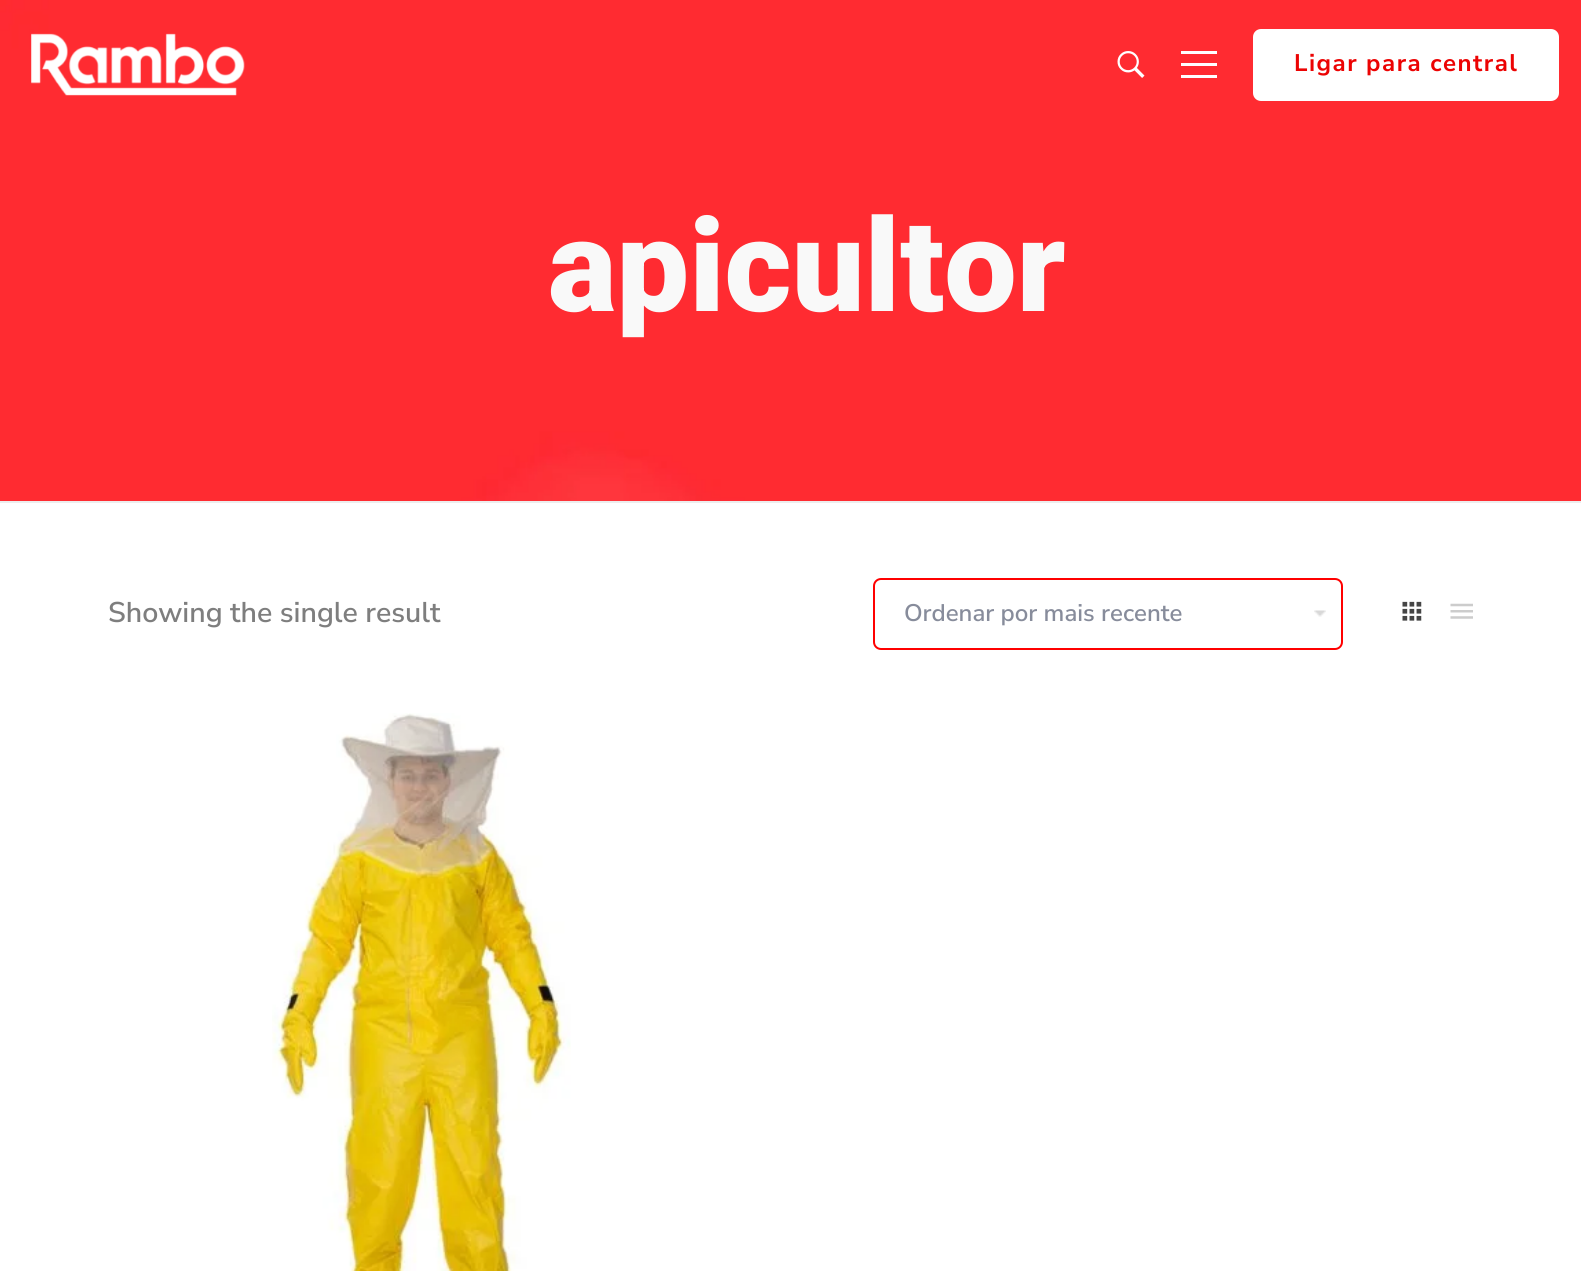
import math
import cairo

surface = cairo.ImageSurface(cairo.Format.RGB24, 1581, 1271)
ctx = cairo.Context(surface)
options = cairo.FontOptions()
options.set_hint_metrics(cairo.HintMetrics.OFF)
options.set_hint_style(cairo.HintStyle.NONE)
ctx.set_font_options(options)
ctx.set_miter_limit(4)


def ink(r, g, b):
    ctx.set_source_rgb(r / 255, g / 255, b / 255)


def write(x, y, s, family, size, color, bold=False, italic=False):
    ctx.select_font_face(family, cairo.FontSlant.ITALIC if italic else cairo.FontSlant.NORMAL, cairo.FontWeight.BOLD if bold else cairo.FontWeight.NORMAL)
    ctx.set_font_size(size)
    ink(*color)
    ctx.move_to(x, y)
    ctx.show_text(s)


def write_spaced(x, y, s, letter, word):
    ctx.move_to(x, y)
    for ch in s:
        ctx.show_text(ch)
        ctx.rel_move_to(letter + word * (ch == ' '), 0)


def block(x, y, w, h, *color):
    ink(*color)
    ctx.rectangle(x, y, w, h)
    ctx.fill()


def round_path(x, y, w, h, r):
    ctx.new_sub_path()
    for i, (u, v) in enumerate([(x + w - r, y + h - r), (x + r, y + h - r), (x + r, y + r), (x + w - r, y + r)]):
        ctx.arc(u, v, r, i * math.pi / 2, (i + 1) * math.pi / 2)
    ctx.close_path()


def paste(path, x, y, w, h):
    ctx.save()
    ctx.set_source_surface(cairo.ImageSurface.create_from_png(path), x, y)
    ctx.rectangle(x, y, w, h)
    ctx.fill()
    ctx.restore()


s1 = dict(family="Roboto Black", size=129, color=(249, 249, 249))
s2 = dict(family="Nunito Sans SemiBold", size=28.5, color=(126, 126, 126))
s3 = dict(family="Nunito Sans SemiBold", size=24, color=(135, 140, 155))

ink(255, 255, 255)
ctx.paint()
paste("pic3.png", 0, 0, 1581, 501)
paste("pic1.png", 31, 33, 214, 63)
paste("pic2.png", 1117, 51, 28, 27)
block(1181, 63, 36, 3, 255, 255, 255)
block(1181, 51, 36, 3, 255, 255, 255)
block(1181, 75, 36, 3, 255, 255, 255)
round_path(1254, 30, 304, 70, 7)
ctx.fill_preserve()
ctx.stroke()
ctx.select_font_face("Nunito Sans", cairo.FontSlant.NORMAL, cairo.FontWeight.BOLD)
ctx.set_font_size(24)
ink(236, 3, 3)
write_spaced(1294, 71, "Ligar para central", 1.5, 0)
block(0, 501, 1581, 2, 237, 237, 237)
write(548, 311, "apicultor", **s1)
write(108, 622, "Showing the single result", **s2)
paste("pic4.png", 1314, 610, 12, 7)
round_path(874, 579, 468, 70, 7)
ink(255, 0, 0)
ctx.stroke()
write(904, 621, "Ordenar por mais recente", **s3)
paste("pic5.png", 1402, 601, 20, 20)
paste("pic6.png", 1450, 603, 23, 16)
paste("pic7.png", 272, 713, 299, 558)
surface.write_to_png("screenshot.png")
